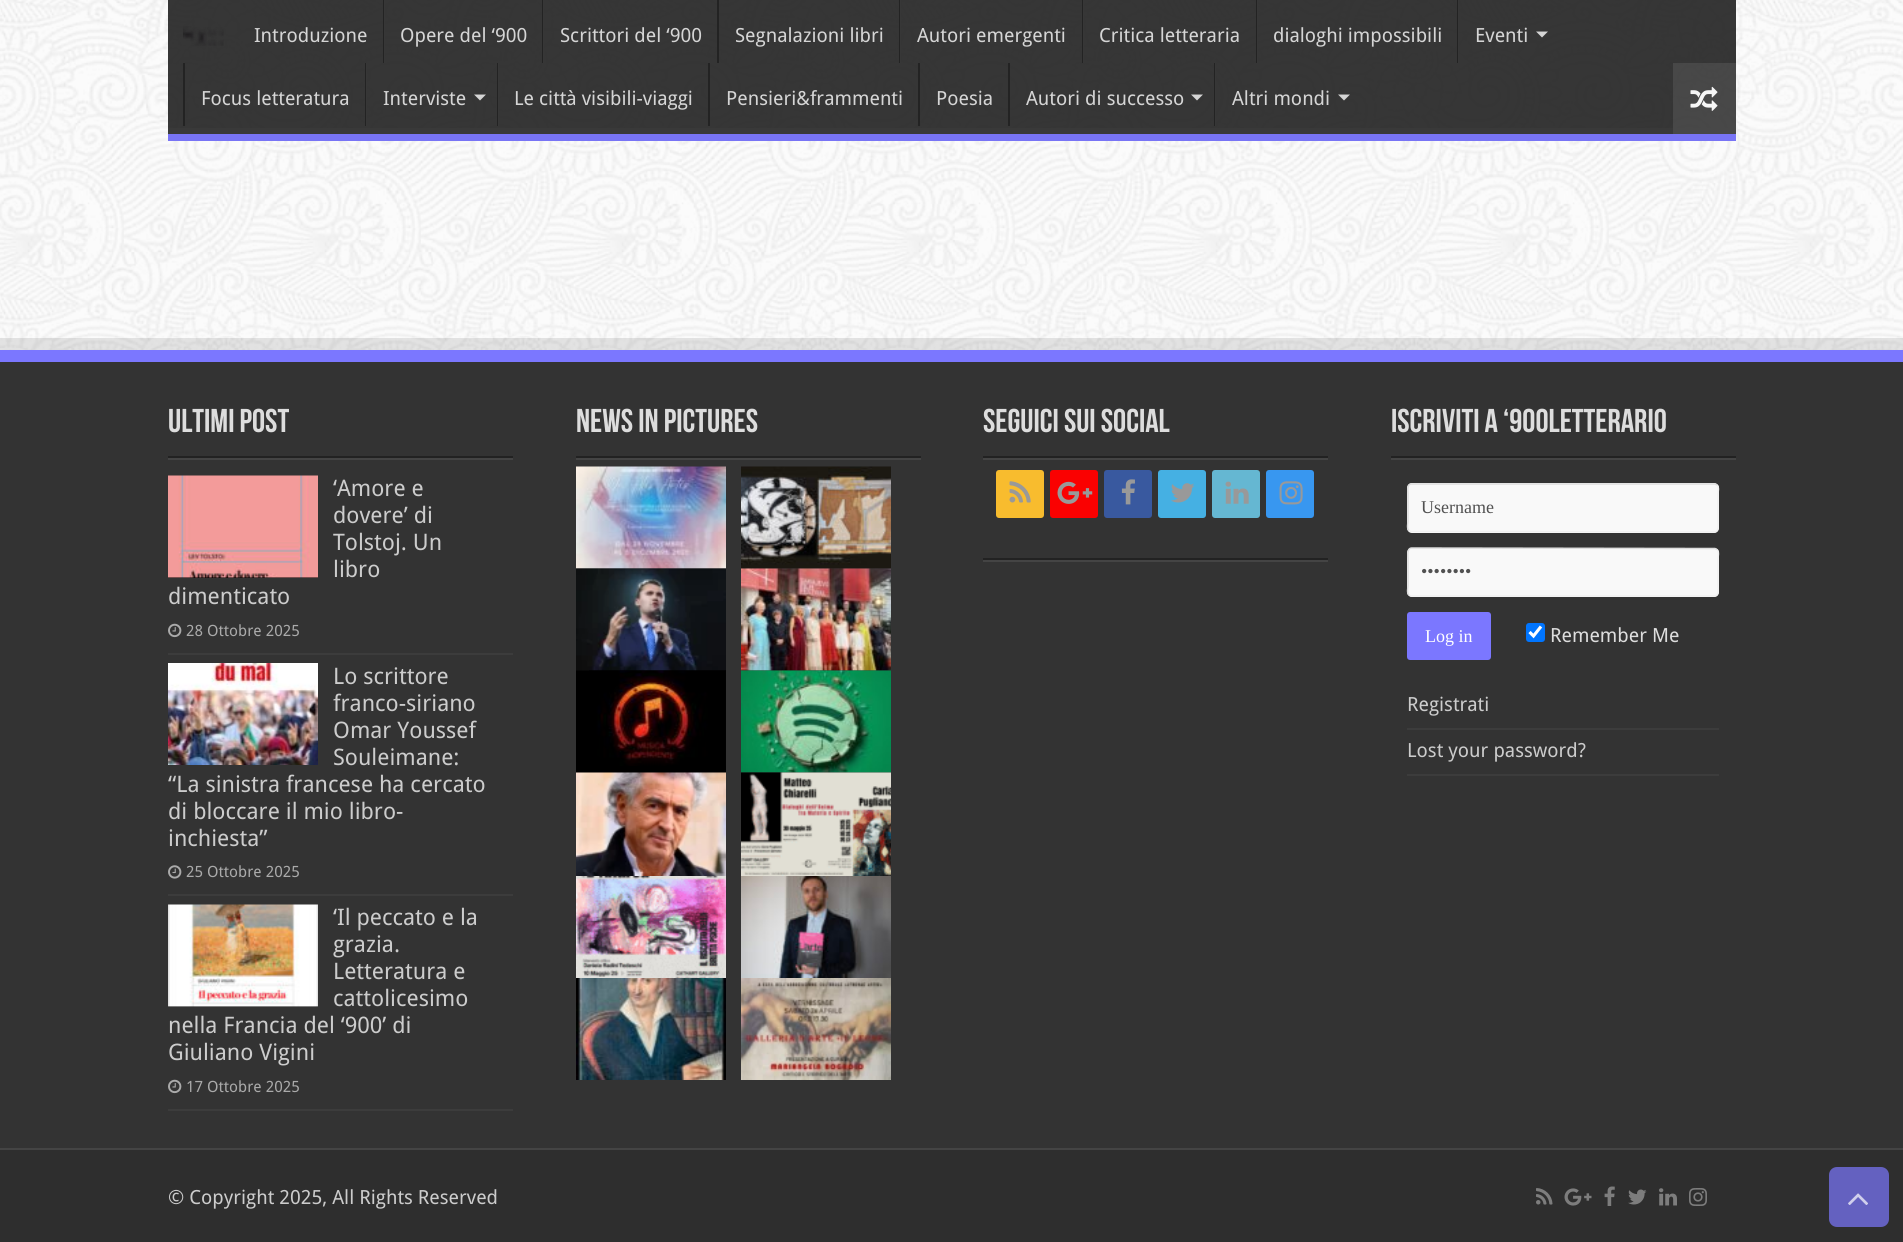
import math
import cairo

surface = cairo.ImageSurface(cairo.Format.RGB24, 1903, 1242)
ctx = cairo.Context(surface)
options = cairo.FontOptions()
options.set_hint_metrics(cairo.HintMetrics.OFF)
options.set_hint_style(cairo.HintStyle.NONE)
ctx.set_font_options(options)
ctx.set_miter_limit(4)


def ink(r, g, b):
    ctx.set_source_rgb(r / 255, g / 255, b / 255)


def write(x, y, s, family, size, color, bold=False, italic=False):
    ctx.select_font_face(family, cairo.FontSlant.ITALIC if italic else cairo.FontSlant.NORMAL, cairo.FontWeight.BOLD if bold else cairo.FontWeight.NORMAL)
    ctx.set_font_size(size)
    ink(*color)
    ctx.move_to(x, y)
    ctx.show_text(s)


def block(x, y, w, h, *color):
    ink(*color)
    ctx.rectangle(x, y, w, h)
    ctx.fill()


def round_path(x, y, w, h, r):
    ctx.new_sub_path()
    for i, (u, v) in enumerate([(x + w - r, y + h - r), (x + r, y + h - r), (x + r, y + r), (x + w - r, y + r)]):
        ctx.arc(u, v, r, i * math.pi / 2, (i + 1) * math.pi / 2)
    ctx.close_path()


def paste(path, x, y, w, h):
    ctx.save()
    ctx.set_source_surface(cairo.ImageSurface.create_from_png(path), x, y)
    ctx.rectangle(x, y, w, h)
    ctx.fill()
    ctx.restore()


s1 = dict(family="Droid Sans", size=19.5, color=(213, 213, 213))
s2 = dict(family="Bebas Neue", size=33, color=(221, 221, 221), bold=True)
s3 = dict(family="Droid Sans", size=22.75, color=(204, 204, 204))
s4 = dict(family="Droid Sans", size=15.5, color=(170, 170, 170))
s5 = dict(family="Liberation Serif", size=18, color=(81, 81, 81))
s6 = dict(family="Liberation Serif", size=18, color=(255, 255, 255))
s7 = dict(family="Droid Sans", size=19.5, color=(221, 221, 221))
s8 = dict(family="Droid Sans", size=19.5, color=(204, 204, 204))

ink(255, 255, 255)
ctx.paint()
paste("pic1.png", 0, 0, 1903, 350)
ctx.set_source_rgba(0.176, 0.176, 0.176, 0.95)
ctx.rectangle(168, 0, 1568, 128)
ctx.fill()
ctx.save()
ctx.rectangle(168, 0, 1568, 134)
ctx.clip()
ink(57, 57, 57)
ctx.set_fill_rule(cairo.FillRule.EVEN_ODD)
ctx.new_path()
ctx.move_to(20, -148)
ctx.line_to(1884, -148)
ctx.line_to(1884, 282)
ctx.line_to(20, 282)
ctx.close_path()
ctx.move_to(166, -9)
ctx.line_to(1734, -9)
ctx.curve_to(1735, -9, 1736, -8, 1736, -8)
ctx.line_to(1736, 126)
ctx.curve_to(1736, 127, 1735, 128, 1734, 128)
ctx.line_to(166, 128)
ctx.curve_to(166, 128, 165, 127, 165, 126)
ctx.line_to(165, -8)
ctx.curve_to(165, -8, 166, -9, 166, -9)
ctx.close_path()
ctx.fill()
ctx.restore()
block(168, 134, 1568, 7, 120, 116, 245)
paste("pic2.png", 183, 26, 41, 20)
write(254, 42, "Introduzione", **s1)
block(383, 0, 2, 63, 35, 35, 35)
ctx.set_source_rgba(0.22, 0.22, 0.22, 0.95)
ctx.rectangle(384, 0, 1, 63)
ctx.fill()
write(400, 42, "Opere del ‘900", **s1)
block(542, 0, 2, 63, 35, 35, 35)
ctx.set_source_rgba(0.22, 0.22, 0.22, 0.95)
ctx.rectangle(543, 0, 1, 63)
ctx.fill()
write(560, 42, "Scrittori del ‘900", **s1)
block(717, 0, 2, 63, 35, 35, 35)
write(735, 42, "Segnalazioni libri", **s1)
block(899, 0, 2, 63, 35, 35, 35)
ctx.set_source_rgba(0.22, 0.22, 0.22, 0.95)
ctx.rectangle(900, 0, 1, 63)
ctx.fill()
write(917, 42, "Autori emergenti", **s1)
block(1082, 0, 2, 63, 35, 35, 35)
ctx.set_source_rgba(0.22, 0.22, 0.22, 0.95)
ctx.rectangle(1083, 0, 1, 63)
ctx.fill()
write(1099, 42, "Critica letteraria", **s1)
block(1256, 0, 2, 63, 35, 35, 35)
ctx.set_source_rgba(0.22, 0.22, 0.22, 0.95)
ctx.rectangle(1257, 0, 1, 63)
ctx.fill()
write(1273, 42, "dialoghi impossibili", **s1)
block(1457, 0, 2, 63, 35, 35, 35)
ctx.set_source_rgba(0.22, 0.22, 0.22, 0.95)
ctx.rectangle(1458, 0, 1, 63)
ctx.fill()
write(1475, 42, "Eventi", **s1)
ctx.new_path()
ctx.move_to(1536, 31.5)
ctx.line_to(1548, 31.5)
ctx.line_to(1542, 37.5)
ctx.close_path()
ctx.fill()
block(183, 63, 2, 63, 35, 35, 35)
write(201, 105, "Focus letteratura", **s1)
block(365, 63, 2, 63, 35, 35, 35)
ctx.set_source_rgba(0.22, 0.22, 0.22, 0.95)
ctx.rectangle(366, 63, 1, 63)
ctx.fill()
write(383, 105, "Interviste", **s1)
ctx.new_path()
ctx.move_to(474, 94.5)
ctx.line_to(486, 94.5)
ctx.line_to(480, 100.5)
ctx.close_path()
ctx.fill()
block(497, 63, 2, 63, 35, 35, 35)
ctx.set_source_rgba(0.22, 0.22, 0.22, 0.95)
ctx.rectangle(498, 63, 1, 63)
ctx.fill()
write(514, 105, "Le città visibili-viaggi", **s1)
block(708, 63, 2, 63, 35, 35, 35)
write(726, 105, "Pensieri&frammenti", **s1)
block(918, 63, 2, 63, 35, 35, 35)
write(936, 105, "Poesia", **s1)
block(1008, 63, 2, 63, 35, 35, 35)
write(1026, 105, "Autori di successo", **s1)
ctx.new_path()
ctx.move_to(1191, 94.5)
ctx.line_to(1203, 94.5)
ctx.line_to(1197, 100.5)
ctx.close_path()
ctx.fill()
block(1214, 63, 2, 63, 35, 35, 35)
ctx.set_source_rgba(0.22, 0.22, 0.22, 0.95)
ctx.rectangle(1215, 63, 1, 63)
ctx.fill()
write(1232, 105, "Altri mondi", **s1)
ctx.new_path()
ctx.move_to(1338, 94.5)
ctx.line_to(1350, 94.5)
ctx.line_to(1344, 100.5)
ctx.close_path()
ctx.fill()
ctx.set_source_rgba(0.286, 0.286, 0.286, 0.95)
ctx.rectangle(1673, 63, 63, 71)
ctx.fill()
paste("pic3.png", 1690, 86, 28, 25)
ctx.set_source_rgba(0, 0, 0, 0.1)
ctx.new_path()
ctx.move_to(0, 338)
ctx.line_to(0, 350)
ctx.line_to(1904, 350)
ctx.line_to(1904, 1136)
ctx.line_to(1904, 338)
ctx.close_path()
ctx.fill()
block(0, 362, 1903, 786, 51, 51, 51)
block(0, 350, 1903, 12, 123, 119, 255)
block(168, 456, 345, 2, 34, 34, 34)
write(168, 432, "Ultimi post", **s2)
block(168, 458, 345, 2, 68, 68, 68)
block(168, 653, 345, 2, 60, 60, 60)
block(168, 577, 150, 1, 0, 0, 0)
paste("pic4.png", 168, 475, 150, 103)
write(333, 496, "‘Amore e", **s3)
write(333, 523, "dovere’ di", **s3)
write(333, 550, "Tolstoj. Un", **s3)
write(333, 577, "libro", **s3)
write(168, 604, "dimenticato", **s3)
paste("pic5.png", 168, 623, 14, 15)
write(186, 636, "28 Ottobre 2025", **s4)
block(168, 894, 345, 2, 60, 60, 60)
paste("pic6.png", 168, 663, 150, 102)
write(333, 684, "Lo scrittore", **s3)
write(333, 711, "franco-siriano", **s3)
write(333, 738, "Omar Youssef", **s3)
write(333, 765, "Souleimane:", **s3)
write(168, 792, "“La sinistra francese ha cercato", **s3)
write(168, 819, "di bloccare il mio libro-", **s3)
write(168, 846, "inchiesta”", **s3)
paste("pic7.png", 168, 865, 14, 14)
write(186, 877, "25 Ottobre 2025", **s4)
block(168, 1109, 345, 2, 60, 60, 60)
block(168, 1006, 150, 1, 0, 0, 0)
paste("pic8.png", 168, 904, 150, 103)
write(333, 925, "‘Il peccato e la", **s3)
write(333, 952, "grazia.", **s3)
write(333, 979, "Letteratura e", **s3)
write(333, 1006, "cattolicesimo", **s3)
write(168, 1033, "nella Francia del ‘900’ di", **s3)
write(168, 1060, "Giuliano Vigini", **s3)
paste("pic5.png", 168, 1079, 14, 15)
write(186, 1092, "17 Ottobre 2025", **s4)
block(576, 456, 345, 2, 34, 34, 34)
write(576, 432, "News in Pictures", **s2)
block(576, 458, 345, 2, 68, 68, 68)
paste("pic9.png", 576, 466, 150, 103)
paste("pic10.png", 741, 466, 150, 103)
block(576, 670, 150, 103, 0, 0, 0)
paste("pic11.png", 576, 568, 150, 103)
paste("pic12.png", 741, 568, 150, 103)
paste("pic13.png", 589, 670, 137, 96)
paste("pic14.png", 741, 670, 150, 103)
paste("pic15.png", 576, 772, 150, 104)
paste("pic16.png", 741, 772, 150, 104)
paste("pic17.png", 576, 876, 150, 102)
paste("pic18.png", 741, 876, 150, 102)
paste("pic19.png", 576, 978, 150, 102)
paste("pic20.png", 741, 978, 150, 102)
block(983, 456, 345, 2, 34, 34, 34)
write(983, 432, "Seguici sui Social", **s2)
block(983, 458, 345, 2, 68, 68, 68)
ink(248, 188, 46)
round_path(996, 470, 48, 48, 3)
ctx.fill()
paste("pic21.png", 1009, 481, 22, 22)
ink(250, 1, 1)
round_path(1050, 470, 48, 48, 3)
ctx.fill()
paste("pic22.png", 1057, 481, 36, 23)
ink(57, 89, 159)
round_path(1104, 470, 48, 48, 3)
ctx.fill()
paste("pic23.png", 1121, 479, 14, 26)
ink(69, 176, 227)
round_path(1158, 470, 48, 48, 3)
ctx.fill()
paste("pic24.png", 1171, 483, 24, 20)
ink(101, 183, 210)
round_path(1212, 470, 48, 48, 3)
ctx.fill()
paste("pic25.png", 1225, 481, 24, 23)
ink(56, 151, 240)
round_path(1266, 470, 48, 48, 3)
ctx.fill()
paste("pic26.png", 1279, 481, 24, 24)
block(983, 558, 345, 2, 34, 34, 34)
block(983, 560, 345, 2, 68, 68, 68)
block(1391, 456, 345, 2, 34, 34, 34)
write(1391, 432, "Iscriviti a ‘900letterario", **s2)
block(1391, 458, 345, 2, 68, 68, 68)
ink(249, 249, 249)
round_path(1407, 483, 312, 50, 5)
ctx.fill()
ctx.new_path()
ctx.move_to(1717, 485)
ctx.curve_to(1719.5, 487, 1718, 492.5, 1718, 494)
ctx.line_to(1718, 521)
ctx.curve_to(1718, 524, 1719.5, 531.5, 1714.5, 532)
ctx.line_to(1411, 531.5)
ctx.line_to(1409, 530.5)
ink(241, 241, 241)
ctx.set_line_width(1.5)
ctx.stroke()
ctx.new_path()
ctx.move_to(1409, 530.5)
ctx.curve_to(1406.5, 528.5, 1408, 523, 1408, 521)
ctx.line_to(1408, 494)
ctx.curve_to(1408, 491.5, 1406.5, 484, 1411.5, 484)
ctx.line_to(1715, 484)
ctx.line_to(1717, 485)
ink(221, 221, 221)
ctx.stroke()
write(1421, 513, "Username", **s5)
ink(249, 249, 249)
round_path(1407, 548, 312, 49, 5)
ctx.fill()
ctx.new_path()
ctx.move_to(1717, 549.5)
ctx.curve_to(1719.5, 551.5, 1718, 557, 1718, 559)
ctx.line_to(1718, 586)
ctx.curve_to(1718, 588.5, 1719.5, 596, 1714.5, 596)
ctx.line_to(1411, 596)
ctx.line_to(1409, 595)
ink(241, 241, 241)
ctx.stroke()
ctx.new_path()
ctx.move_to(1409, 595)
ctx.curve_to(1406.5, 593, 1408, 587.5, 1408, 586)
ctx.line_to(1408, 559)
ctx.curve_to(1408, 556, 1406.5, 548.5, 1411.5, 548)
ctx.line_to(1715, 548.5)
ctx.line_to(1717, 549.5)
ink(221, 221, 221)
ctx.stroke()
write(1421, 577, "••••••••", **s5)
ink(123, 119, 255)
round_path(1407, 612, 84, 48, 3)
ctx.fill()
write(1425, 642, "Log in", **s6)
ink(0, 117, 255)
round_path(1526, 623, 19, 19, 3)
ctx.fill()
ctx.new_path()
ctx.move_to(1529.5, 632)
ctx.line_to(1533.5, 636)
ctx.line_to(1541, 626.5)
ink(255, 255, 255)
ctx.set_line_width(3.1)
ctx.stroke()
write(1550, 642, "Remember Me", **s7)
block(1407, 728, 312, 2, 60, 60, 60)
write(1407, 711, "Registrati", **s8)
block(1407, 774, 312, 2, 60, 60, 60)
write(1407, 757, "Lost your password?", **s8)
block(0, 1150, 1903, 92, 46, 46, 46)
block(0, 1148, 1903, 2, 68, 68, 68)
write(168, 1204, "© Copyright 2025, All Rights Reserved", **s8)
paste("pic27.png", 1536, 1188, 17, 17)
paste("pic28.png", 1564, 1188, 28, 18)
paste("pic29.png", 1604, 1186, 11, 20)
paste("pic30.png", 1628, 1189, 19, 16)
paste("pic31.png", 1659, 1188, 18, 18)
paste("pic32.png", 1689, 1188, 18, 18)
ink(100, 97, 192)
round_path(1829, 1167, 60, 60, 8)
ctx.fill()
paste("pic33.png", 1848, 1193, 20, 12)
surface.write_to_png("screenshot.png")
